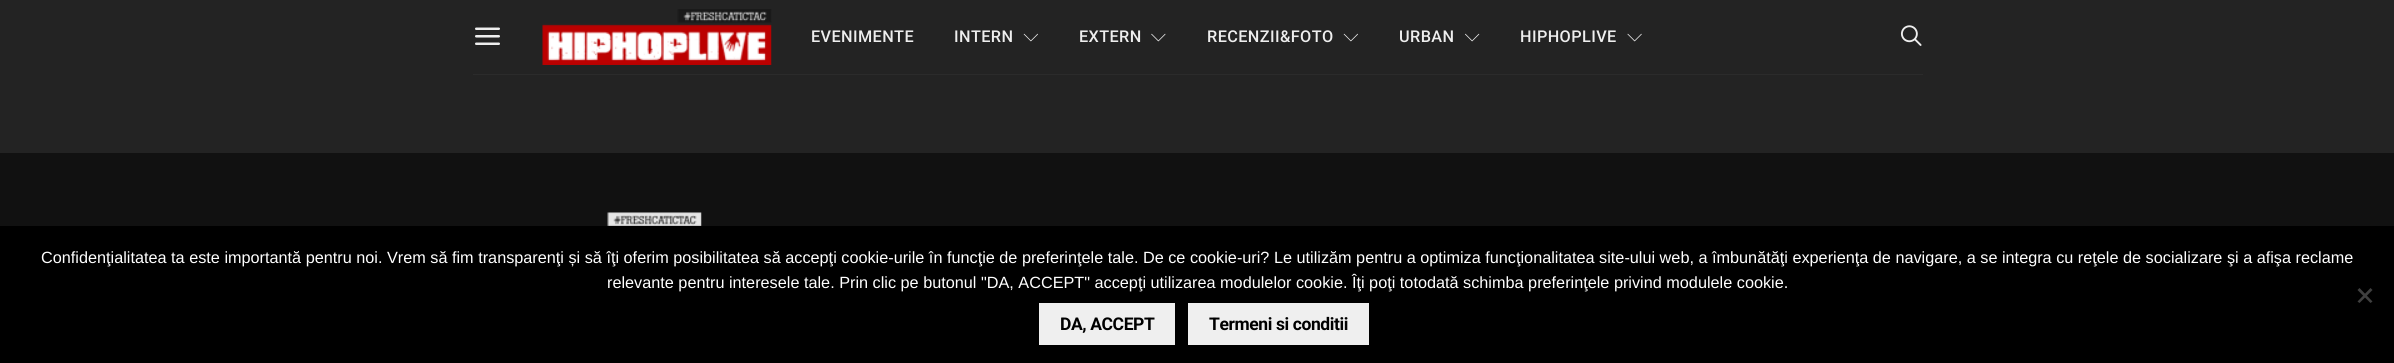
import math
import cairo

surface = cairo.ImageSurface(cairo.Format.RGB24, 2394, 363)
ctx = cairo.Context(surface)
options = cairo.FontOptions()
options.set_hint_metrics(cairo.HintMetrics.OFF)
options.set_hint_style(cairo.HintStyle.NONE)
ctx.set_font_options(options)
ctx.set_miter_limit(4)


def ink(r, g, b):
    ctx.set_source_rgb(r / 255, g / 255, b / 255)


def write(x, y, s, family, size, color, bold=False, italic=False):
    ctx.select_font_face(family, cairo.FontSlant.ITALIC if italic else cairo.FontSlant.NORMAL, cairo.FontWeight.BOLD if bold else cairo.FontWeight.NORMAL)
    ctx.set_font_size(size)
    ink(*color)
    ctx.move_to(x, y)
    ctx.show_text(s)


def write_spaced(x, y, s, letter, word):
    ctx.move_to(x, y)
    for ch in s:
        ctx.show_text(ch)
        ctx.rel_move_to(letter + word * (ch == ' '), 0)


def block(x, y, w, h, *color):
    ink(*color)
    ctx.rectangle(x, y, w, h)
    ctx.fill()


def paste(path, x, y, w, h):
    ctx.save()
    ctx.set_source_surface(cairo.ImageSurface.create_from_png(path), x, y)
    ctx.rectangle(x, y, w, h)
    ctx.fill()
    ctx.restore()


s1 = dict(family="Liberation Sans", size=16.25, color=(255, 255, 255))

ink(35, 35, 35)
ctx.paint()
block(473, 74, 1450, 1, 43, 43, 43)
paste("pic1.png", 475, 27, 25, 18)
paste("pic2.png", 542, 9, 230, 56)
ctx.select_font_face("Roboto Medium")
ctx.set_font_size(16.25)
ink(238, 238, 238)
write_spaced(811, 42, "EVENIMENTE", 0.4, 0)
write_spaced(954, 42, "INTERN", 0.4, 0)
paste("pic3.png", 1023, 33, 15, 9)
write_spaced(1079, 42, "EXTERN", 0.4, 0)
paste("pic4.png", 1151, 33, 15, 9)
write_spaced(1207, 42, "RECENZII&FOTO", 0.4, 0)
paste("pic3.png", 1343, 33, 15, 9)
write_spaced(1399, 42, "URBAN", 0.4, 0)
paste("pic5.png", 1465, 33, 15, 9)
write_spaced(1520, 42, "HIPHOPLIVE", 0.4, 0)
paste("pic6.png", 1627, 33, 15, 9)
paste("pic7.png", 1900, 25, 22, 21)
block(0, 153, 2394, 73, 17, 17, 17)
paste("pic8.png", 607, 212, 95, 14)
block(0, 226, 2394, 137, 0, 0, 0)
write(41, 263, "Confidenţialitatea ta este importantă pentru noi. Vrem să fim transparenţi și să îţi oferim posibilitatea să accepţi cookie-urile în funcţie de preferinţele tale. De ce cookie-uri? Le utilizăm pentru a optimiza funcţionalitatea site-ului web, a îmbunătăţi experienţa de navigare, a se integra cu reţele de socializare şi a afişa reclame", **s1)
write(607, 288, "relevante pentru interesele tale. Prin clic pe butonul \"DA, ACCEPT\" accepţi utilizarea modulelor cookie. Îţi poţi totodată schimba preferinţele privind modulele cookie.", **s1)
ink(64, 64, 64)
ctx.new_path()
ctx.move_to(2370.5, 288)
ctx.line_to(2372.5, 290)
ctx.line_to(2359.5, 303)
ctx.line_to(2357.5, 301.5)
ctx.close_path()
ctx.fill()
ctx.new_path()
ctx.move_to(2357.5, 290)
ctx.line_to(2359.5, 288)
ctx.line_to(2372.5, 301.5)
ctx.line_to(2370.5, 303)
ctx.close_path()
ctx.fill()
block(1039, 303, 136, 42, 239, 239, 239)
ctx.select_font_face("Roboto", cairo.FontSlant.NORMAL, cairo.FontWeight.BOLD)
ctx.set_font_size(17.5)
ink(0, 0, 0)
write_spaced(1060, 330, "DA, ACCEPT", -0.4, 0)
block(1188, 303, 181, 42, 239, 239, 239)
ink(0, 0, 0)
write_spaced(1209, 330, "Termeni si conditii", -0.4, 0)
surface.write_to_png("screenshot.png")
